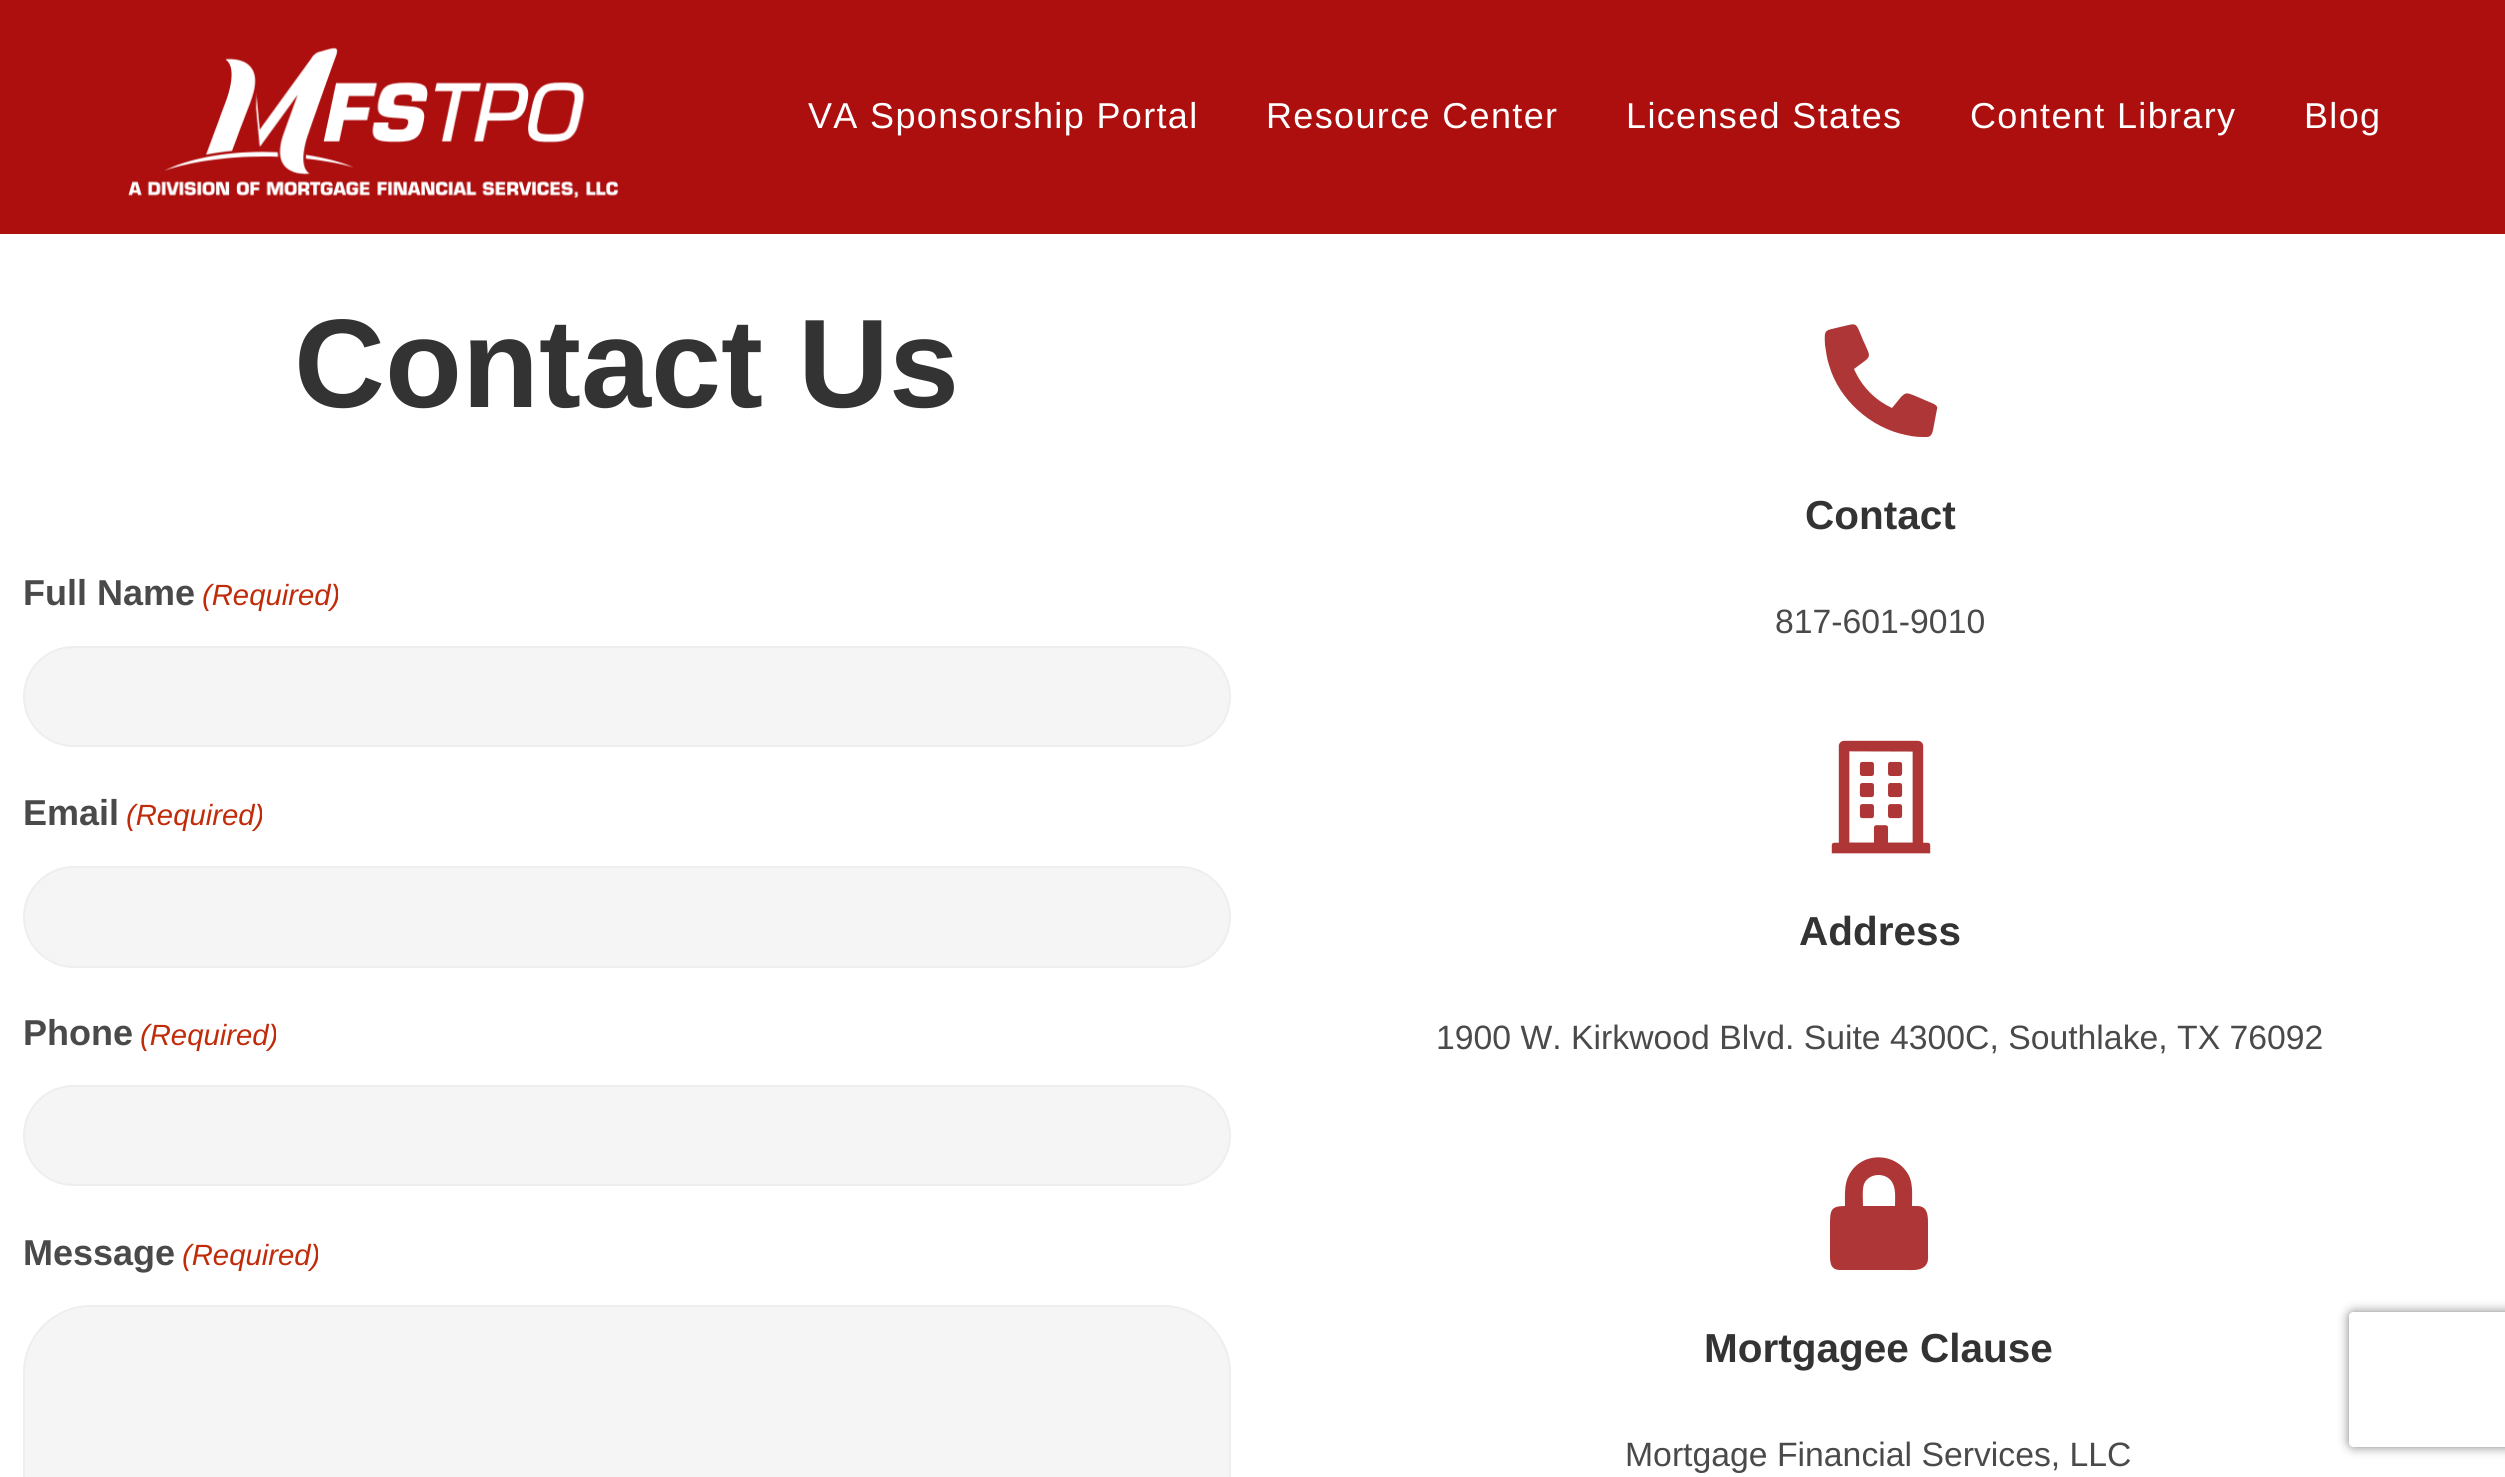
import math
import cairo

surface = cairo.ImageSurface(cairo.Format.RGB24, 2505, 1477)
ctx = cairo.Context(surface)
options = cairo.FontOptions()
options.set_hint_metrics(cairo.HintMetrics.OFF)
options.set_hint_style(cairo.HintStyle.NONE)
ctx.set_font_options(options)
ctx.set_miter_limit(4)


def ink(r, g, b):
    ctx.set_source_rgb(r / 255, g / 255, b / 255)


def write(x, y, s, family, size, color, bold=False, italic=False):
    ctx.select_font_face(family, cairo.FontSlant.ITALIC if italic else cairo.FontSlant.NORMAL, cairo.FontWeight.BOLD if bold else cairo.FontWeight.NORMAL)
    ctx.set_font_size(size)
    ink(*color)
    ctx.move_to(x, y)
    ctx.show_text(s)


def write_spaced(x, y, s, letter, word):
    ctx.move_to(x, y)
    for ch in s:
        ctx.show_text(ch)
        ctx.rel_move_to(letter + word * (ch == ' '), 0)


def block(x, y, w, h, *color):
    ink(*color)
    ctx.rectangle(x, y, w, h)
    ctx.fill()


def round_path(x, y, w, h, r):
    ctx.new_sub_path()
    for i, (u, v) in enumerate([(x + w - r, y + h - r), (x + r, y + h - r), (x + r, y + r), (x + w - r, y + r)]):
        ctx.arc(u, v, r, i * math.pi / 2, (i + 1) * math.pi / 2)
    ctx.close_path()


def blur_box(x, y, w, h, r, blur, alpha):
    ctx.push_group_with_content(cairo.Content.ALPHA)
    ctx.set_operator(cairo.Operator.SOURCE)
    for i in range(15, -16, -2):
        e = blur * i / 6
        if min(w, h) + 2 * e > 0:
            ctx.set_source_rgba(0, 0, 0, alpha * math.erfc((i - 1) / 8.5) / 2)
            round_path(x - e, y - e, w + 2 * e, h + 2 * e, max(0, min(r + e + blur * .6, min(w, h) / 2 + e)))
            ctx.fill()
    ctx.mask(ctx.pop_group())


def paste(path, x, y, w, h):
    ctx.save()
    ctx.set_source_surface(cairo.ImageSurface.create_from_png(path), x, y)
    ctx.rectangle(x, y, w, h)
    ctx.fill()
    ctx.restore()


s1 = dict(family="Liberation Sans", size=126, color=(51, 51, 51), bold=True)
s2 = dict(family="Liberation Sans", size=36, color=(74, 74, 74), bold=True)
s3 = dict(family="Liberation Sans", size=29.25, color=(192, 43, 10), italic=True)
s4 = dict(family="Liberation Sans", size=40.5, color=(51, 51, 51), bold=True)
s5 = dict(family="Liberation Sans", size=33.75, color=(74, 74, 74))

ink(255, 255, 255)
ctx.paint()
block(0, 0, 2505, 234, 173, 15, 15)
paste("pic1.png", 128, 47, 491, 151)
ctx.select_font_face("Liberation Sans")
ctx.set_font_size(36)
ink(255, 255, 255)
write_spaced(808, 128, "VA Sponsorship Portal", 1.35, 0)
write_spaced(1266, 128, "Resource Center", 1.35, 0)
write_spaced(1626, 128, "Licensed States", 1.35, 0)
write_spaced(1970, 128, "Content Library", 1.35, 0)
write_spaced(2304, 128, "Blog", 1.35, 0)
write(294, 407, "Contact Us", **s1)
write(23, 605, "Full Name", **s2)
write(202, 605, "(Required)", **s3)
ink(245, 245, 245)
round_path(24, 647, 1206, 99, 49.5)
ctx.fill_preserve()
ink(238, 238, 238)
ctx.stroke()
write(23, 825, "Email", **s2)
write(126, 825, "(Required)", **s3)
ink(245, 245, 245)
round_path(24, 867, 1206, 100, 50)
ctx.fill_preserve()
ink(238, 238, 238)
ctx.stroke()
write(23, 1045, "Phone", **s2)
write(140, 1045, "(Required)", **s3)
ink(245, 245, 245)
round_path(24, 1086, 1206, 99, 49.5)
ctx.fill_preserve()
ink(238, 238, 238)
ctx.stroke()
write(23, 1265, "Message", **s2)
write(182, 1265, "(Required)", **s3)
ink(245, 245, 245)
round_path(24, 1306, 1206, 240, 67)
ctx.fill_preserve()
ink(238, 238, 238)
ctx.stroke()
ctx.save()
ctx.set_fill_rule(cairo.FillRule.EVEN_ODD)
ctx.new_path()
ctx.move_to(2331, 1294)
ctx.line_to(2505, 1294)
ctx.line_to(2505, 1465)
ctx.line_to(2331, 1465)
ctx.close_path()
ctx.move_to(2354, 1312)
ctx.line_to(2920, 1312)
ctx.curve_to(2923, 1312, 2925, 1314, 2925, 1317)
ctx.line_to(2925, 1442)
ctx.curve_to(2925, 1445, 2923, 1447, 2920, 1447)
ctx.line_to(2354, 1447)
ctx.curve_to(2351, 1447, 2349, 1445, 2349, 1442)
ctx.line_to(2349, 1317)
ctx.curve_to(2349, 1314, 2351, 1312, 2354, 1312)
ctx.close_path()
ctx.clip()
ink(128, 128, 128)
blur_box(2349, 1312, 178, 135, 5, 5.5, 1)
ctx.restore()
ink(174, 54, 54)
ctx.new_path()
ctx.move_to(1934, 404)
ctx.curve_to(1936, 405, 1938, 407, 1937, 409)
ctx.line_to(1934, 425)
ctx.curve_to(1933, 429, 1933, 437, 1927, 437)
ctx.curve_to(1918, 437, 1915, 437, 1906, 435)
ctx.curve_to(1871, 428, 1839, 400, 1829, 365)
ctx.curve_to(1827, 359, 1826, 352, 1825, 345)
ctx.curve_to(1824, 328, 1825, 331, 1840, 327)
ctx.curve_to(1858, 323, 1855, 321, 1863, 340)
ctx.curve_to(1872, 360, 1872, 355, 1854, 369)
ctx.curve_to(1862, 387, 1875, 400, 1892, 408)
ctx.line_to(1901, 397)
ctx.curve_to(1906, 392, 1907, 393, 1913, 395)
ctx.close_path()
ctx.fill()
write(1805, 529, "Contact", **s4)
write(1775, 633, "817-601-9010", **s5)
paste("pic2.png", 1831, 740, 100, 114)
write(1799, 945, "Address", **s4)
write(1436, 1049, "1900 W. Kirkwood Blvd. Suite 4300C, Southlake, TX 76092", **s5)
ink(174, 54, 54)
ctx.new_path()
ctx.move_to(1917, 1206)
ctx.curve_to(1928, 1206, 1928, 1216, 1928, 1224)
ctx.line_to(1928, 1252)
ctx.curve_to(1928, 1258, 1929, 1263, 1924, 1267)
ctx.curve_to(1919, 1271, 1910, 1270, 1905, 1270)
ctx.line_to(1840, 1270)
ctx.curve_to(1829, 1270, 1830, 1260, 1830, 1252)
ctx.line_to(1830, 1224)
ctx.curve_to(1830, 1210, 1831, 1206, 1845, 1206)
ctx.curve_to(1845, 1196, 1844, 1184, 1849, 1175)
ctx.curve_to(1862, 1150, 1899, 1152, 1910, 1178)
ctx.curve_to(1913, 1187, 1912, 1197, 1912, 1206)
ctx.close_path()
ctx.move_to(1895, 1206)
ctx.curve_to(1895, 1200, 1896, 1190, 1893, 1184)
ctx.curve_to(1888, 1172, 1869, 1172, 1864, 1184)
ctx.curve_to(1862, 1190, 1863, 1200, 1863, 1206)
ctx.close_path()
ctx.fill()
write(1704, 1362, "Mortgagee Clause", **s4)
write(1625, 1466, "Mortgage Financial Services, LLC", **s5)
surface.write_to_png("screenshot.png")
